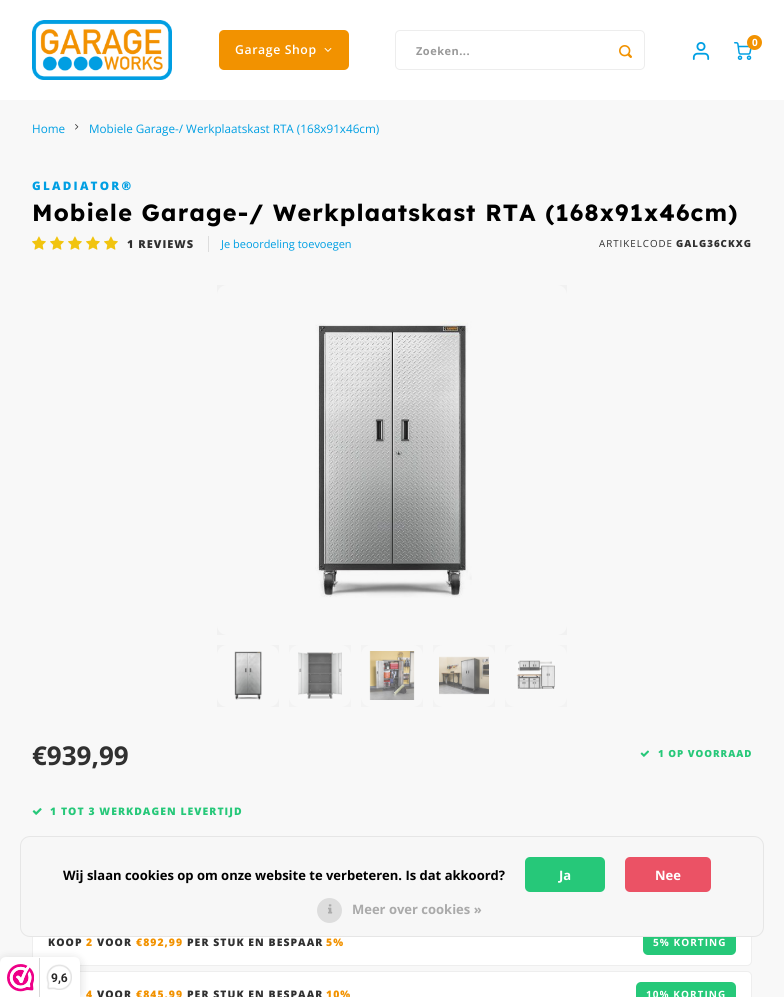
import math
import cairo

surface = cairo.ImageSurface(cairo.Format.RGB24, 784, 997)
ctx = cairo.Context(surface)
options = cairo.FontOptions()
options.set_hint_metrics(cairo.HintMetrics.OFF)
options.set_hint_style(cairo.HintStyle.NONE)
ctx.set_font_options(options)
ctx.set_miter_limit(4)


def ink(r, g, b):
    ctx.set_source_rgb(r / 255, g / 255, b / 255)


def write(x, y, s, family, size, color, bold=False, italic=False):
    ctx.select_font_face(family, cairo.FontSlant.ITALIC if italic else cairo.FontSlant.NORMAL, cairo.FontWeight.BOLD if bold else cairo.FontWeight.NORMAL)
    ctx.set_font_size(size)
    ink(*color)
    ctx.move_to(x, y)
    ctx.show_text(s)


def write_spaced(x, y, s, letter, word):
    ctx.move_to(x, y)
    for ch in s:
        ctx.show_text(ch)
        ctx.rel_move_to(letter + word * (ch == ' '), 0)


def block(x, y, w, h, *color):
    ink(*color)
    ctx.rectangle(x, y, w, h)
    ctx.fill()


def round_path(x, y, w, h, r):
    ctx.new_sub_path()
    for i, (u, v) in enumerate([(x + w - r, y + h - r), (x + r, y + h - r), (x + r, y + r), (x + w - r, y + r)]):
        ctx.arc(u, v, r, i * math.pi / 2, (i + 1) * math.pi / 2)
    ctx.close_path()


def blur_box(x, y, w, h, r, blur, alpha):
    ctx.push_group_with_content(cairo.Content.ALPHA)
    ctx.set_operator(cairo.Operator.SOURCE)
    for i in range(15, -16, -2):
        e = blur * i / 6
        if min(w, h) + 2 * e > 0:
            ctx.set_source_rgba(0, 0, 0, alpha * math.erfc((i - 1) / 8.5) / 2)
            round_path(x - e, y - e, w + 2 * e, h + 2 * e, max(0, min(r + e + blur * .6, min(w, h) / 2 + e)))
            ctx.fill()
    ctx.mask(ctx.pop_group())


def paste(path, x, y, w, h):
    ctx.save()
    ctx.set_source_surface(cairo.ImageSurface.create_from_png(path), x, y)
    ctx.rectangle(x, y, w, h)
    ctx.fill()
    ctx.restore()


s1 = dict(family="Open Sans", size=10, color=(255, 255, 255), bold=True)
s2 = dict(family="Open Sans", size=11.7, color=(0, 159, 227))
s3 = dict(family="Open Sans", size=11, color=(0, 159, 227))
s4 = dict(family="Open Sans", size=26, color=(48, 48, 48), bold=True)
s5 = dict(family="Open Sans", size=13, color=(0, 0, 0), bold=True)
s6 = dict(family="Open Sans", size=13, color=(255, 255, 255), bold=True)
s7 = dict(family="Open Sans", size=13, color=(170, 170, 170), bold=True)
s8 = dict(family="Roboto", size=12, color=(39, 38, 38), bold=True)

ink(248, 248, 248)
ctx.paint()
block(0, 0, 784, 100, 255, 255, 255)
paste("pic1.png", 32, 20, 140, 60)
paste("pic2.png", 692, 42, 18, 18)
paste("pic3.png", 734, 42, 18, 18)
ink(242, 146, 0)
ctx.arc(754.5, 42.5, 7.5, 0, 2 * math.pi)
ctx.fill()
write(752, 46, "0", **s1)
ink(242, 146, 0)
round_path(219, 30, 130, 40, 5)
ctx.fill()
ctx.select_font_face("Open Sans SemiBold")
ctx.set_font_size(12.25)
ink(255, 255, 255)
write_spaced(235, 54, "Garage Shop", 0.6, 0)
paste("pic4.png", 324, 48, 8, 4)
round_path(395.5, 30.5, 249, 39, 4.5)
ink(237, 237, 237)
ctx.set_line_width(1)
ctx.stroke()
ctx.select_font_face("Open Sans", cairo.FontSlant.NORMAL, cairo.FontWeight.BOLD)
ctx.set_font_size(11)
ink(153, 153, 153)
write_spaced(416, 55, "Zoeken...", 0.5, 0)
paste("pic5.png", 619, 45, 13, 13)
write(32, 133, "Home", **s2)
paste("pic6.png", 75, 124, 4, 6)
write(89, 133, "Mobiele Garage-/ Werkplaatskast RTA (168x91x46cm)", **s2)
ctx.select_font_face("Open Sans ExtraBold")
write_spaced(32, 190, "GLADIATOR®", 2.25, 0)
ctx.select_font_face("Lexend", cairo.FontSlant.NORMAL, cairo.FontWeight.BOLD)
ctx.set_font_size(23.4)
ink(0, 0, 0)
write_spaced(32, 221, "Mobiele Garage-/ Werkplaatskast RTA (168x91x46cm)", 1.15, 0)
paste("pic7.png", 32, 236, 14, 14)
paste("pic7.png", 50, 236, 14, 14)
paste("pic7.png", 68, 236, 14, 14)
paste("pic7.png", 86, 236, 14, 14)
paste("pic7.png", 104, 236, 14, 14)
block(208, 236, 1, 16, 221, 221, 221)
ctx.select_font_face("Open Sans ExtraBold")
ctx.set_font_size(11)
ink(48, 48, 48)
write_spaced(127, 248, "1 REVIEWS", 1, 0)
write(221, 248, "Je beoordeling toevoegen", **s3)
ctx.set_font_size(9.75)
ink(48, 48, 48)
write_spaced(599, 247, "ARTIKELCODE", 1, 0)
ctx.select_font_face("Open Sans ExtraBold")
write_spaced(676, 247, "GALG36CKXG", 1, 0)
ink(255, 255, 255)
round_path(217, 285, 350, 350, 10)
ctx.fill()
paste("pic8.png", 315, 320, 157, 278)
ctx.set_source_rgba(0, 0, 0, 0.03)
ctx.rectangle(217, 285, 350, 350)
ctx.fill()
ink(255, 255, 255)
round_path(217, 645, 62, 62, 10)
ctx.fill()
paste("pic9.png", 234, 651, 28, 49)
ctx.set_source_rgba(0, 0, 0, 0.03)
ctx.rectangle(217, 645, 62, 62)
ctx.fill()
ink(253, 253, 253)
round_path(289, 645, 62, 62, 10)
ctx.fill()
paste("pic10.png", 298, 652, 44, 47)
ctx.set_source_rgba(0.29, 0.29, 0.29, 0.03)
ctx.rectangle(289, 645, 62, 62)
ctx.fill()
ink(253, 253, 253)
round_path(361, 645, 62, 62, 10)
ctx.fill()
paste("pic11.png", 369, 651, 46, 49)
ctx.set_source_rgba(0.29, 0.29, 0.29, 0.03)
ctx.rectangle(361, 645, 62, 62)
ctx.fill()
ink(253, 253, 253)
round_path(433, 645, 62, 62, 10)
ctx.fill()
paste("pic12.png", 439, 656, 50, 39)
ctx.set_source_rgba(0.29, 0.29, 0.29, 0.03)
ctx.rectangle(433, 645, 62, 62)
ctx.fill()
ink(253, 253, 253)
round_path(505, 645, 62, 62, 10)
ctx.fill()
paste("pic13.png", 516, 660, 39, 29)
ctx.set_source_rgba(0.29, 0.29, 0.29, 0.03)
ctx.rectangle(505, 645, 62, 62)
ctx.fill()
write(32, 765, "€939,99", **s4)
paste("pic14.png", 640, 750, 9, 7)
ctx.select_font_face("Open Sans ExtraBold")
ctx.set_font_size(9.75)
ink(38, 200, 121)
write_spaced(658, 757, "1 OP VOORRAAD", 1, 0)
paste("pic15.png", 32, 808, 10, 7)
ctx.set_font_size(10.4)
write_spaced(50, 815, "1 TOT 3 WERKDAGEN LEVERTIJD", 1.05, 0)
ink(255, 255, 255)
round_path(32, 919, 720, 47, 5)
ctx.fill()
round_path(32.5, 919.5, 719, 46, 4.5)
ctx.set_source_rgba(0, 0, 0, 0.07)
ctx.stroke()
ink(48, 48, 48)
write_spaced(48, 946, "KOOP", 1.05, 0)
ink(242, 146, 0)
write_spaced(86, 946, "2", 1.05, 0)
ink(48, 48, 48)
write_spaced(97, 946, "VOOR", 1.05, 0)
ink(242, 146, 0)
write_spaced(136, 946, "€892,99", 1.05, 0)
ink(48, 48, 48)
write_spaced(187, 946, "PER STUK EN BESPAAR", 1.05, 0)
ink(242, 146, 0)
write_spaced(326, 946, "5%", 1.05, 0)
ink(38, 200, 121)
round_path(643, 930, 93, 25, 5)
ctx.fill()
ctx.select_font_face("Open Sans", cairo.FontSlant.NORMAL, cairo.FontWeight.BOLD)
ctx.set_font_size(10)
ink(255, 255, 255)
write_spaced(653, 946, "5% KORTING", 1.05, 0)
round_path(32, 971, 720, 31, 5)
ctx.fill()
round_path(32.5, 971.5, 719, 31, 4.5)
ctx.set_source_rgba(0, 0, 0, 0.07)
ctx.stroke()
ctx.select_font_face("Open Sans ExtraBold")
ctx.set_font_size(10.4)
ink(242, 146, 0)
write_spaced(86, 998, "4", 1.05, 0)
ink(48, 48, 48)
write_spaced(97, 998, "VOOR", 1.05, 0)
ink(242, 146, 0)
write_spaced(136, 998, "€845,99", 1.05, 0)
ink(48, 48, 48)
write_spaced(187, 998, "PER STUK EN BESPAAR", 1.05, 0)
ink(242, 146, 0)
write_spaced(326, 998, "10%", 1.05, 0)
ink(38, 200, 121)
round_path(636, 982, 100, 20, 5)
ctx.fill()
ctx.select_font_face("Open Sans", cairo.FontSlant.NORMAL, cairo.FontWeight.BOLD)
ctx.set_font_size(10)
ink(255, 255, 255)
write_spaced(646, 998, "10% KORTING", 1.05, 0)
ink(247, 247, 247)
round_path(20.5, 836.5, 743, 100, 9.5)
ctx.fill_preserve()
ink(230, 230, 230)
ctx.stroke()
write(63, 880, "Wij slaan cookies op om onze website te verbeteren. Is dat akkoord?", **s5)
ink(38, 200, 121)
round_path(525, 857, 80, 35, 5)
ctx.fill()
write(559, 880, "Ja", **s6)
ink(235, 82, 101)
round_path(625, 857, 86, 35, 5)
ctx.fill()
write(655, 880, "Nee", **s6)
ink(221, 221, 221)
ctx.new_path()
ctx.arc(329.5, 910.5, 12.5, 0, 2 * math.pi)
ctx.fill()
paste("pic16.png", 328, 904, 5, 10)
write(352, 914, "Meer over cookies »", **s7)
ink(0, 0, 0)
blur_box(0, 959, 80, 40, 6, 5, 0.15)
ink(255, 255, 255)
ctx.new_path()
ctx.move_to(6, 957)
ctx.line_to(74, 957)
ctx.curve_to(77.5, 957, 80, 959.5, 80, 963)
ctx.line_to(80, 997)
ctx.line_to(0, 997)
ctx.line_to(0, 963)
ctx.curve_to(0, 959.5, 2.5, 957, 6, 957)
ctx.close_path()
ctx.fill()
paste("pic17.png", 7, 964, 27, 28)
block(39, 958, 1, 39, 217, 217, 217)
paste("pic18.png", 46, 964, 26, 26)
write(51, 982, "9,6", **s8)
surface.write_to_png("screenshot.png")
